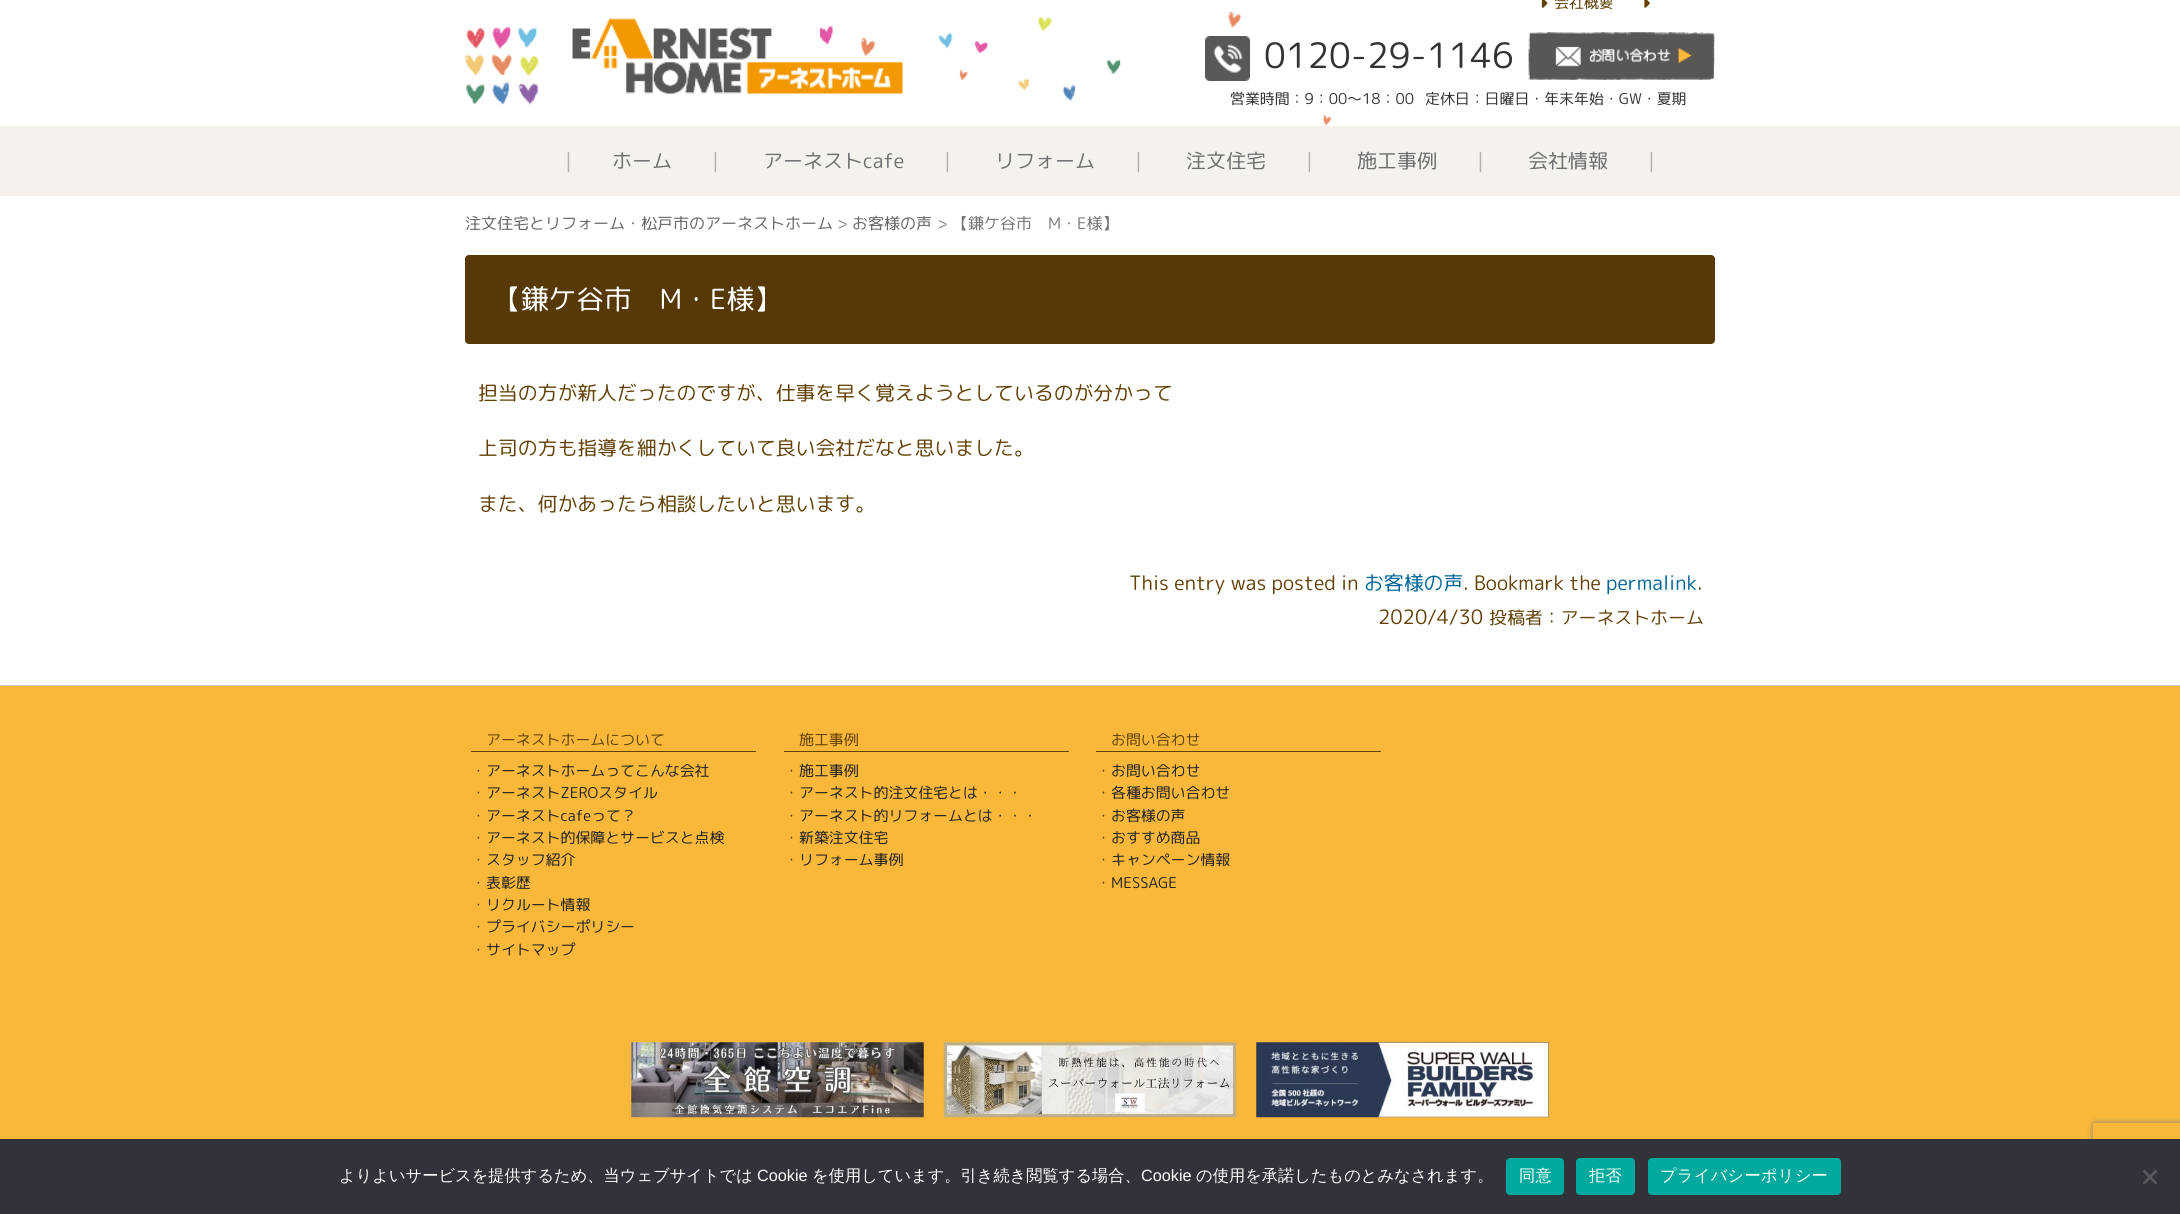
import math
import cairo

surface = cairo.ImageSurface(cairo.Format.RGB24, 2180, 1214)
ctx = cairo.Context(surface)
options = cairo.FontOptions()
options.set_hint_metrics(cairo.HintMetrics.OFF)
options.set_hint_style(cairo.HintStyle.NONE)
ctx.set_font_options(options)
ctx.set_miter_limit(4)


def ink(r, g, b):
    ctx.set_source_rgb(r / 255, g / 255, b / 255)


def write(x, y, s, family, size, color, bold=False, italic=False):
    ctx.select_font_face(family, cairo.FontSlant.ITALIC if italic else cairo.FontSlant.NORMAL, cairo.FontWeight.BOLD if bold else cairo.FontWeight.NORMAL)
    ctx.set_font_size(size)
    ink(*color)
    ctx.move_to(x, y)
    ctx.show_text(s)


def write_spaced(x, y, s, letter, word):
    ctx.move_to(x, y)
    for ch in s:
        ctx.show_text(ch)
        ctx.rel_move_to(letter + word * (ch == ' '), 0)


def block(x, y, w, h, *color):
    ink(*color)
    ctx.rectangle(x, y, w, h)
    ctx.fill()


def round_path(x, y, w, h, r):
    ctx.new_sub_path()
    for i, (u, v) in enumerate([(x + w - r, y + h - r), (x + r, y + h - r), (x + r, y + r), (x + w - r, y + r)]):
        ctx.arc(u, v, r, i * math.pi / 2, (i + 1) * math.pi / 2)
    ctx.close_path()


def blur_box(x, y, w, h, r, blur, alpha):
    ctx.push_group_with_content(cairo.Content.ALPHA)
    ctx.set_operator(cairo.Operator.SOURCE)
    for i in range(15, -16, -2):
        e = blur * i / 6
        if min(w, h) + 2 * e > 0:
            ctx.set_source_rgba(0, 0, 0, alpha * math.erfc((i - 1) / 8.5) / 2)
            round_path(x - e, y - e, w + 2 * e, h + 2 * e, max(0, min(r + e + blur * .6, min(w, h) / 2 + e)))
            ctx.fill()
    ctx.mask(ctx.pop_group())


def paste(path, x, y, w, h):
    ctx.save()
    ctx.set_source_surface(cairo.ImageSurface.create_from_png(path), x, y)
    ctx.rectangle(x, y, w, h)
    ctx.fill()
    ctx.restore()


s1 = dict(family="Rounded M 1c", size=14.9, color=(98, 65, 6))
s2 = dict(family="Rounded M 1c", size=35, color=(51, 51, 51))
s3 = dict(family="Rounded M 1c", size=14.9, color=(51, 51, 51))
s4 = dict(family="Rounded M 1c", size=20, color=(178, 176, 174))
s5 = dict(family="Rounded M 1c", size=20, color=(112, 112, 112))
s6 = dict(family="Rounded M 1c", size=16, color=(102, 102, 102))
s7 = dict(family="Rounded M 1c", size=16, color=(119, 119, 119))
s8 = dict(family="Rounded M 1c", size=27.75, color=(255, 255, 255))
s9 = dict(family="Rounded M 1c", size=19.85, color=(98, 65, 6))
s10 = dict(family="Rounded M 1c", size=19.85, color=(0, 102, 153))
s11 = dict(family="Rounded M 1c", size=17.9, color=(98, 65, 6))
s12 = dict(family="Rounded M 1c", size=14.9, color=(34, 34, 34))
s13 = dict(family="WenQuanYi Zen Hei Medium", size=16.25, color=(255, 255, 255))
s14 = dict(family="Liberation Sans", size=16.25, color=(255, 255, 255))

ink(255, 255, 255)
ctx.paint()
paste("pic1.png", 465, 11, 867, 114)
paste("pic2.png", 572, 18, 331, 77)
paste("pic3.png", 1541, 0, 7, 8)
write(1554, 8, "会社概要", **s1)
paste("pic4.png", 1644, 0, 6, 8)
paste("pic5.png", 1205, 36, 45, 45)
write(1264, 68, "0120-29-1146", **s2)
paste("pic6.png", 1528, 32, 187, 48)
write(1230, 104, "営業時間：9：00～18：00", **s3)
write(1425, 104, "定休日：日曜日・年末年始・GW・夏期", **s3)
block(0, 126, 2180, 70, 245, 241, 237)
write(565, 168, "|", **s4)
write(612, 168, "ホーム", **s5)
write(712, 168, "|", **s4)
write(763, 168, "アーネストcafe", **s5)
write(944, 168, "|", **s4)
write(995, 168, "リフォーム", **s5)
write(1135, 168, "|", **s4)
write(1186, 168, "注文住宅", **s5)
write(1306, 168, "|", **s4)
write(1357, 168, "施工事例", **s5)
write(1477, 168, "|", **s4)
write(1528, 168, "会社情報", **s5)
write(1648, 168, "|", **s4)
write(465, 229, "注文住宅とリフォーム・松戸市のアーネストホーム", **s6)
write(837, 229, ">", **s7)
write(852, 229, "お客様の声", **s6)
write(937, 229, "> 【鎌ケ谷市　M・E様】", **s7)
ink(87, 57, 8)
round_path(465, 255, 1250, 89, 4)
ctx.fill()
write(493, 309, "【鎌ケ谷市　M・E様】", **s8)
write(478, 400, "担当の方が新人だったのですが、仕事を早く覚えようとしているのが分かって", **s9)
write(478, 455, "上司の方も指導を細かくしていて良い会社だなと思いました。", **s9)
write(478, 511, "また、何かあったら相談したいと思います。", **s9)
write(1129, 590, "This entry was posted in", **s9)
write(1364, 590, "お客様の声", **s10)
write(1463, 590, ". Bookmark the", **s9)
write(1606, 590, "permalink", **s10)
write(1697, 590, ".", **s9)
write(1378, 624, "2020/4/30", **s9)
write(1489, 624, "投稿者：アーネストホーム", **s11)
block(0, 686, 2180, 453, 250, 184, 58)
block(0, 685, 2180, 1, 204, 204, 204)
block(471, 751, 285, 1, 98, 65, 6)
write(486, 745, "アーネストホームについて", **s1)
write(471, 776, "・", **s1)
write(486, 776, "アーネストホームってこんな会社", **s12)
write(471, 798, "・", **s1)
write(486, 798, "アーネストZEROスタイル", **s12)
write(471, 821, "・", **s1)
write(486, 821, "アーネストcafeって？", **s12)
write(471, 843, "・", **s1)
write(486, 843, "アーネスト的保障とサービスと点検", **s12)
write(471, 865, "・", **s1)
write(486, 865, "スタッフ紹介", **s12)
write(471, 888, "・", **s1)
write(486, 888, "表彰歴", **s12)
write(471, 910, "・", **s1)
write(486, 910, "リクルート情報", **s12)
write(471, 932, "・", **s1)
write(486, 932, "プライバシーポリシー", **s12)
write(471, 955, "・", **s1)
write(486, 955, "サイトマップ", **s12)
block(784, 751, 285, 1, 98, 65, 6)
write(799, 745, "施工事例", **s1)
write(784, 776, "・", **s1)
write(799, 776, "施工事例", **s12)
write(784, 798, "・", **s1)
write(799, 798, "アーネスト的注文住宅とは・・・", **s12)
write(784, 821, "・", **s1)
write(799, 821, "アーネスト的リフォームとは・・・", **s12)
write(784, 843, "・", **s1)
write(799, 843, "新築注文住宅", **s12)
write(784, 865, "・", **s1)
write(799, 865, "リフォーム事例", **s12)
block(1096, 751, 285, 1, 98, 65, 6)
write(1111, 745, "お問い合わせ", **s1)
write(1096, 776, "・", **s1)
write(1111, 776, "お問い合わせ", **s12)
write(1096, 798, "・", **s1)
write(1111, 798, "各種お問い合わせ", **s12)
write(1096, 821, "・", **s1)
write(1111, 821, "お客様の声", **s12)
write(1096, 843, "・", **s1)
write(1111, 843, "おすすめ商品", **s12)
write(1096, 865, "・", **s1)
write(1111, 865, "キャンペーン情報", **s12)
write(1096, 888, "・", **s1)
write(1111, 888, "MESSAGE", **s12)
paste("pic7.png", 631, 1042, 293, 76)
paste("pic8.png", 943, 1042, 294, 76)
paste("pic9.png", 1256, 1042, 293, 76)
ctx.save()
ctx.set_fill_rule(cairo.FillRule.EVEN_ODD)
ctx.new_path()
ctx.move_to(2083, 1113)
ctx.line_to(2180, 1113)
ctx.line_to(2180, 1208)
ctx.line_to(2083, 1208)
ctx.close_path()
ctx.move_to(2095.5, 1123)
ctx.line_to(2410.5, 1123)
ctx.curve_to(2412, 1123, 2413, 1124, 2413, 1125.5)
ctx.line_to(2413, 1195.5)
ctx.curve_to(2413, 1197, 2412, 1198, 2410.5, 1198)
ctx.line_to(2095.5, 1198)
ctx.curve_to(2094, 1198, 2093, 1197, 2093, 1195.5)
ctx.line_to(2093, 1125.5)
ctx.curve_to(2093, 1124, 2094, 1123, 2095.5, 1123)
ctx.close_path()
ctx.clip()
ink(128, 128, 128)
blur_box(2093, 1123, 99, 75, 2.5, 3, 1)
ctx.restore()
block(0, 1139, 2180, 75, 50, 50, 58)
write(339, 1181, "よりよいサービスを提供するため、当ウェブサイトでは", **s13)
write(757, 1181, "Cookie", **s14)
write(812, 1181, "を使用しています。引き続き閲覧する場合、", **s13)
write(1141, 1181, "Cookie", **s14)
write(1196, 1181, "の使用を承諾したものとみなされます。", **s13)
ink(0, 169, 157)
round_path(1506, 1158, 58, 37, 4)
ctx.fill()
ink(255, 255, 255)
write_spaced(1519, 1181, "同意", 0.25, 0)
ink(0, 169, 157)
round_path(1576, 1158, 59, 37, 4)
ctx.fill()
ink(255, 255, 255)
write_spaced(1589, 1181, "拒否", 0.25, 0)
ink(0, 169, 157)
round_path(1648, 1158, 193, 37, 4)
ctx.fill()
ink(255, 255, 255)
write_spaced(1660, 1181, "プライバシーポリシー", 0.25, 0)
ink(89, 89, 93)
ctx.new_path()
ctx.move_to(2155.5, 1169.5)
ctx.line_to(2157.5, 1171.5)
ctx.line_to(2144.5, 1184.5)
ctx.line_to(2142.5, 1183)
ctx.close_path()
ctx.fill()
ctx.new_path()
ctx.move_to(2142.5, 1171.5)
ctx.line_to(2144.5, 1169.5)
ctx.line_to(2157.5, 1183)
ctx.line_to(2155.5, 1184.5)
ctx.close_path()
ctx.fill()
surface.write_to_png("screenshot.png")
